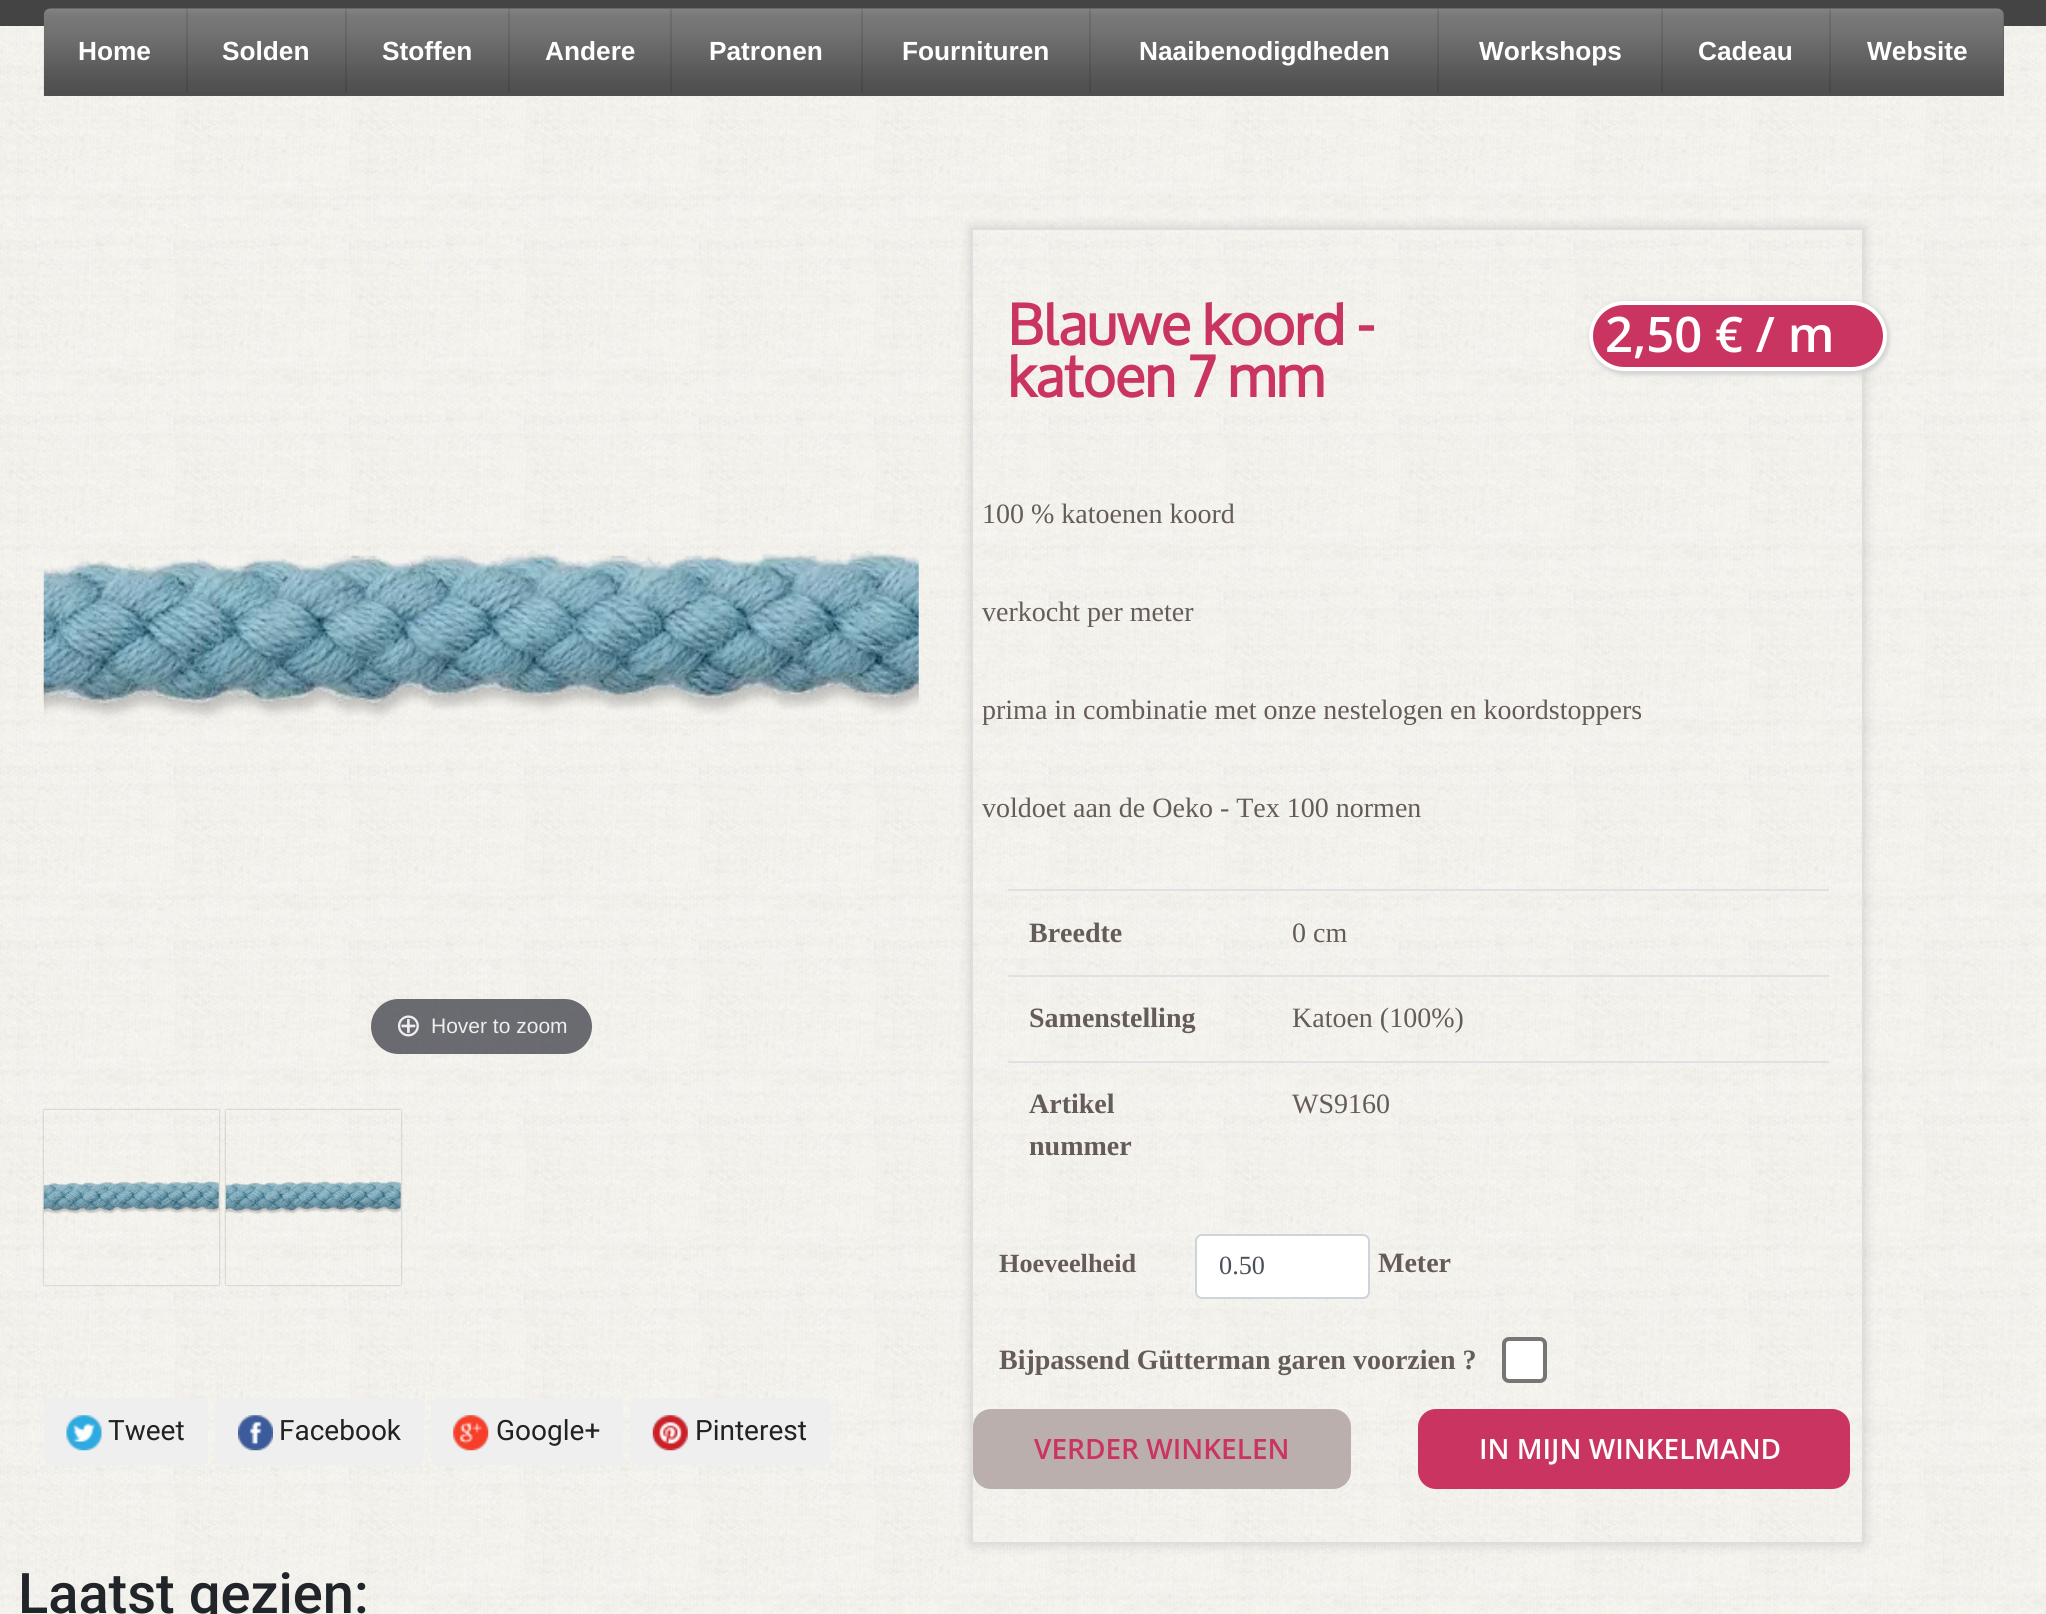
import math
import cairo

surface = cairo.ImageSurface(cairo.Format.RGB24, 2046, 1614)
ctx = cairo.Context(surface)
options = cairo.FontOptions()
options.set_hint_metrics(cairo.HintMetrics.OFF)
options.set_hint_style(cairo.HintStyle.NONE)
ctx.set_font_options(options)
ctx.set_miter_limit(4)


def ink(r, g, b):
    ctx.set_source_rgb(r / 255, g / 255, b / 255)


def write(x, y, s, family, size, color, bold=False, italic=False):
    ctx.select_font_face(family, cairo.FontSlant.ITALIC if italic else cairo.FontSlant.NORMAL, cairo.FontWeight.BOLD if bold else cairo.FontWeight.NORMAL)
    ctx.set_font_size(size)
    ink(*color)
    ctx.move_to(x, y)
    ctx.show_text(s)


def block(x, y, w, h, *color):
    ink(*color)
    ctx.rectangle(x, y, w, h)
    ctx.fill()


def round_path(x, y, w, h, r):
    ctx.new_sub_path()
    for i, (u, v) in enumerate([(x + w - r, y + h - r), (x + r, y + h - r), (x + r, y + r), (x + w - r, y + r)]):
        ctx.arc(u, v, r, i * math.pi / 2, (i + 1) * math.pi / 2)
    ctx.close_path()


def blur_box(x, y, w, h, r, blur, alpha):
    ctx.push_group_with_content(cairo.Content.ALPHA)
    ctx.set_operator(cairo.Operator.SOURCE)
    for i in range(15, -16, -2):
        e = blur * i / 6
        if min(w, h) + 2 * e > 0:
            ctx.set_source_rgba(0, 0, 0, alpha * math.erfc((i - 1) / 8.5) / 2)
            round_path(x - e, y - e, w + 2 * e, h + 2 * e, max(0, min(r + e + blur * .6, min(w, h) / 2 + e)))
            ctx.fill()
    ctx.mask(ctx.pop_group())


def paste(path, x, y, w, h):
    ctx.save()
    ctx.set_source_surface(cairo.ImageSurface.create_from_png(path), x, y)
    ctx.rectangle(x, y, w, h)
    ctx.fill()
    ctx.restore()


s1 = dict(family="Liberation Sans", size=26.25, color=(255, 255, 255), bold=True)
s2 = dict(family="DejaVu Sans", size=32, color=(238, 238, 238))
s3 = dict(family="Liberation Sans", size=21, color=(238, 238, 238))
s4 = dict(family="Roboto", size=28, color=(34, 34, 34))
s5 = dict(family="Oxygen", size=56, color=(202, 52, 96), bold=True)
s6 = dict(family="Open Sans SemiBold", size=49, color=(255, 255, 255))
s7 = dict(family="Liberation Serif", size=28, color=(101, 92, 90))
s8 = dict(family="Liberation Serif", size=28, color=(101, 92, 90), bold=True)
s9 = dict(family="Liberation Serif", size=26.25, color=(101, 92, 90), bold=True)
s10 = dict(family="Liberation Serif", size=26.25, color=(73, 80, 87))
s11 = dict(family="Open Sans SemiBold", size=28, color=(202, 52, 96))
s12 = dict(family="Open Sans SemiBold", size=28, color=(255, 255, 255))
s13 = dict(family="Roboto Medium", size=56, color=(33, 37, 41))

ink(255, 255, 255)
ctx.paint()
paste("pic1.png", 0, 26, 2046, 1588)
block(0, 0, 2046, 26, 68, 68, 68)
ink(85, 85, 85)
ctx.new_path()
ctx.move_to(51, 9)
ctx.line_to(1997, 9)
ctx.curve_to(2001, 9, 2004, 12, 2004, 16)
ctx.line_to(2004, 96)
ctx.line_to(44, 96)
ctx.line_to(44, 16)
ctx.curve_to(44, 12, 47, 9, 51, 9)
ctx.close_path()
ctx.fill()
paste("pic2.png", 43, 8, 1961, 88)
ctx.set_source_rgba(0, 0, 0, 0.1)
ctx.rectangle(186, 9, 2, 84)
ctx.fill()
write(78, 60, "Home", **s1)
ctx.set_source_rgba(0, 0, 0, 0.1)
ctx.rectangle(345, 9, 2, 84)
ctx.fill()
write(222, 60, "Solden", **s1)
ctx.set_source_rgba(0, 0, 0, 0.1)
ctx.rectangle(508, 9, 2, 84)
ctx.fill()
write(382, 60, "Stoffen", **s1)
ctx.set_source_rgba(0, 0, 0, 0.1)
ctx.rectangle(670, 9, 2, 84)
ctx.fill()
write(545, 60, "Andere", **s1)
ctx.set_source_rgba(0, 0, 0, 0.1)
ctx.rectangle(861, 9, 2, 84)
ctx.fill()
write(709, 60, "Patronen", **s1)
ctx.set_source_rgba(0, 0, 0, 0.1)
ctx.rectangle(1089, 9, 2, 84)
ctx.fill()
write(902, 60, "Fournituren", **s1)
ctx.set_source_rgba(0, 0, 0, 0.1)
ctx.rectangle(1437, 9, 2, 84)
ctx.fill()
write(1139, 60, "Naaibenodigdheden", **s1)
ctx.set_source_rgba(0, 0, 0, 0.1)
ctx.rectangle(1661, 9, 2, 84)
ctx.fill()
write(1479, 60, "Workshops", **s1)
ctx.set_source_rgba(0, 0, 0, 0.1)
ctx.rectangle(1829, 9, 2, 84)
ctx.fill()
write(1698, 60, "Cadeau", **s1)
write(1867, 60, "Website", **s1)
paste("pic3.png", 43, 549, 876, 170)
ctx.set_source_rgba(0.192, 0.2, 0.239, 0.7)
round_path(371, 999, 221, 55, 27.5)
ctx.fill()
write(395, 1036, "⊕", **s2)
write(431, 1033, "Hover to zoom", **s3)
ctx.save()
ctx.set_fill_rule(cairo.FillRule.EVEN_ODD)
ctx.new_path()
ctx.move_to(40, 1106)
ctx.line_to(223, 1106)
ctx.line_to(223, 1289)
ctx.line_to(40, 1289)
ctx.close_path()
ctx.move_to(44, 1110)
ctx.line_to(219, 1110)
ctx.line_to(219, 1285)
ctx.line_to(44, 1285)
ctx.close_path()
ctx.clip()
ink(0, 0, 0)
blur_box(44, 1110, 175, 175, 0, 1, 0.3)
ctx.restore()
paste("pic4.png", 43, 1180, 176, 34)
ctx.save()
ctx.set_fill_rule(cairo.FillRule.EVEN_ODD)
ctx.new_path()
ctx.move_to(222, 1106)
ctx.line_to(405, 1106)
ctx.line_to(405, 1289)
ctx.line_to(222, 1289)
ctx.close_path()
ctx.move_to(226, 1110)
ctx.line_to(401, 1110)
ctx.line_to(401, 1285)
ctx.line_to(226, 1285)
ctx.close_path()
ctx.clip()
ink(0, 0, 0)
blur_box(226, 1110, 175, 175, 0, 1, 0.3)
ctx.restore()
paste("pic5.png", 225, 1180, 176, 34)
ink(239, 239, 239)
round_path(44, 1398, 164, 67, 7)
ctx.fill()
paste("pic6.png", 66, 1415, 36, 36)
write(108, 1440, "Tweet", **s4)
ink(239, 239, 239)
round_path(215, 1398, 209, 67, 7)
ctx.fill()
paste("pic7.png", 238, 1415, 35, 36)
write(279, 1440, "Facebook", **s4)
ink(239, 239, 239)
round_path(431, 1398, 192, 67, 7)
ctx.fill()
paste("pic8.png", 453, 1415, 36, 36)
write(496, 1440, "Google+", **s4)
ink(239, 239, 239)
round_path(630, 1398, 200, 67, 7)
ctx.fill()
paste("pic9.png", 652, 1415, 36, 36)
write(695, 1440, "Pinterest", **s4)
ctx.save()
ctx.set_fill_rule(cairo.FillRule.EVEN_ODD)
ctx.new_path()
ctx.move_to(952, 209)
ctx.line_to(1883, 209)
ctx.line_to(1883, 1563)
ctx.line_to(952, 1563)
ctx.close_path()
ctx.move_to(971, 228)
ctx.line_to(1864, 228)
ctx.line_to(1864, 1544)
ctx.line_to(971, 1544)
ctx.close_path()
ctx.clip()
ink(0, 0, 0)
blur_box(971, 228, 893, 1316, 0, 6, 0.15)
ctx.restore()
ctx.rectangle(972, 229, 891, 1314)
ink(223, 222, 222)
ctx.stroke()
write(1008, 345, "Blauwe koord -", **s5)
write(1008, 397, "katoen 7 mm", **s5)
ink(213, 213, 213)
blur_box(1589, 301, 301, 74, 37, 2, 1)
ink(202, 52, 96)
round_path(1591, 303, 294, 66, 33)
ctx.fill_preserve()
ink(255, 255, 255)
ctx.set_line_width(4)
ctx.stroke()
write(1605, 352, "2,50 € / m", **s6)
write(982, 523, "100 % katoenen koord", **s7)
write(982, 621, "verkocht per meter", **s7)
write(982, 719, "prima in combinatie met onze nestelogen en koordstoppers", **s7)
write(982, 817, "voldoet aan de Oeko - Tex 100 normen", **s7)
write(1029, 942, "Breedte", **s8)
block(1008, 889, 821, 2, 222, 226, 230)
write(1292, 942, "0 cm", **s7)
write(1029, 1027, "Samenstelling", **s8)
block(1008, 975, 821, 2, 222, 226, 230)
write(1292, 1027, "Katoen (100%)", **s7)
write(1029, 1113, "Artikel", **s8)
write(1029, 1155, "nummer", **s8)
block(1008, 1061, 821, 2, 222, 226, 230)
write(1292, 1113, "WS9160", **s7)
write(999, 1272, "Hoeveelheid", **s9)
ink(255, 255, 255)
round_path(1196, 1235, 173, 63, 6)
ctx.fill_preserve()
ink(206, 212, 218)
ctx.set_line_width(2)
ctx.stroke()
write(1219, 1274, "0.50", **s10)
write(1378, 1272, "Meter", **s8)
write(999, 1369, "Bijpassend Gütterman garen voorzien ?", **s8)
ink(255, 255, 255)
round_path(1504, 1339, 41, 42, 5)
ctx.fill_preserve()
ink(118, 118, 118)
ctx.set_line_width(4)
ctx.stroke()
ink(187, 175, 174)
round_path(973, 1409, 378, 80, 18)
ctx.fill()
write(1034, 1459, "VERDER WINKELEN", **s11)
round_path(1418, 1409, 432, 80, 18)
ctx.fill()
write(1479, 1459, "IN MIJN WINKELMAND", **s12)
write(18, 1613, "Laatst gezien:", **s13)
surface.write_to_png("screenshot.png")
